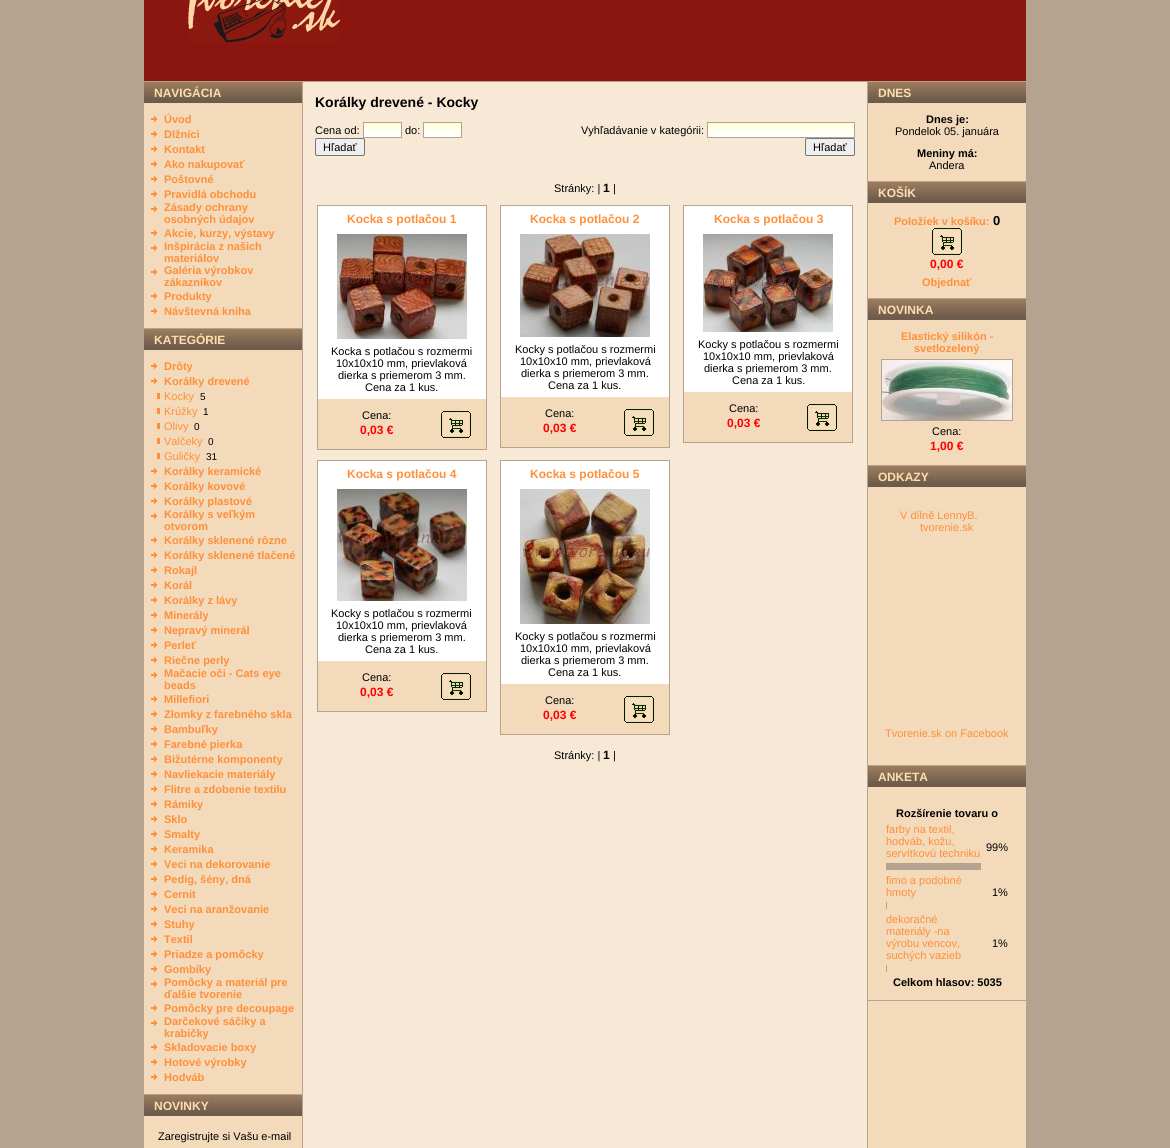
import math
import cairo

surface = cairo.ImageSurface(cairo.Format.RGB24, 1170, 1148)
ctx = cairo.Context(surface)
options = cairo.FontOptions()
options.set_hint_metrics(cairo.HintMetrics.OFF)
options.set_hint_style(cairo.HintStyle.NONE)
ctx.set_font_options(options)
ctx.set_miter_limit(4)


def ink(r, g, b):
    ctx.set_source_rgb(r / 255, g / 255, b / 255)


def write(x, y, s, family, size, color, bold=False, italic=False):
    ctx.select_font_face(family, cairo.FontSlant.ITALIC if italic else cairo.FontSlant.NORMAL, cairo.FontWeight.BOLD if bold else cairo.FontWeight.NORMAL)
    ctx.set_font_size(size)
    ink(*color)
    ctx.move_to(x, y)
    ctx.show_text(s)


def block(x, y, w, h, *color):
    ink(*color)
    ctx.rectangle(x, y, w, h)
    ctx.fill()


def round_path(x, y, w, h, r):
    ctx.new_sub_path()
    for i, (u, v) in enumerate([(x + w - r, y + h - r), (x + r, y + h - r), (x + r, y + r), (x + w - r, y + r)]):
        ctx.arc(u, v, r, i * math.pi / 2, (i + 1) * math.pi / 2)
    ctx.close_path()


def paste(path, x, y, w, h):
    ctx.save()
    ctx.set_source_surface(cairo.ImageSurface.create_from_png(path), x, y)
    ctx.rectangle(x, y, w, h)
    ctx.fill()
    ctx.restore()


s1 = dict(family="Liberation Sans", size=12, color=(255, 222, 173), bold=True)
s2 = dict(family="Liberation Sans", size=11, color=(255, 143, 58), bold=True)
s3 = dict(family="Liberation Sans", size=11, color=(255, 143, 58))
s4 = dict(family="Liberation Sans", size=10, color=(0, 0, 0))
s5 = dict(family="Liberation Sans", size=11, color=(0, 0, 0))
s6 = dict(family="Liberation Sans", size=14, color=(0, 0, 0), bold=True)
s7 = dict(family="Liberation Sans", size=12, color=(0, 0, 0), bold=True)
s8 = dict(family="Liberation Sans", size=12, color=(255, 143, 58), bold=True)
s9 = dict(family="Liberation Sans", size=12, color=(255, 0, 0), bold=True)
s10 = dict(family="Liberation Sans", size=11, color=(0, 0, 0), bold=True)
s11 = dict(family="Liberation Sans", size=13, color=(0, 0, 0), bold=True)

ink(181, 163, 143)
ctx.paint()
block(144, 0, 882, 81, 139, 22, 16)
paste("pic1.png", 188, 0, 152, 43)
block(144, 103, 158, 1045, 243, 218, 186)
paste("pic2.png", 144, 82, 158, 21)
write(154, 97, "NAVIGÁCIA", **s1)
paste("pic3.png", 151, 116, 6, 6)
write(164, 123, "Úvod", **s2)
paste("pic3.png", 151, 131, 6, 6)
write(164, 138, "Dlžníci", **s2)
paste("pic3.png", 151, 146, 6, 6)
write(164, 153, "Kontakt", **s2)
paste("pic3.png", 151, 161, 6, 6)
write(164, 168, "Ako nakupovať", **s2)
paste("pic3.png", 151, 176, 6, 6)
write(164, 183, "Poštovné", **s2)
paste("pic3.png", 151, 191, 6, 6)
write(164, 198, "Pravidlá obchodu", **s2)
paste("pic3.png", 151, 206, 6, 6)
write(164, 211, "Zásady ochrany", **s2)
write(164, 223, "osobných údajov", **s2)
paste("pic3.png", 151, 230, 6, 6)
write(164, 237, "Akcie, kurzy, výstavy", **s2)
paste("pic3.png", 151, 245, 6, 6)
write(164, 250, "Inšpirácia z našich", **s2)
write(164, 262, "materiálov", **s2)
paste("pic3.png", 151, 269, 6, 6)
write(164, 274, "Galéria výrobkov", **s2)
write(164, 286, "zákazníkov", **s2)
paste("pic3.png", 151, 293, 6, 6)
write(164, 300, "Produkty", **s2)
paste("pic3.png", 151, 308, 6, 6)
write(164, 315, "Návštevná kniha", **s2)
block(144, 328, 158, 1, 181, 163, 143)
paste("pic2.png", 144, 329, 158, 21)
write(154, 344, "KATEGÓRIE", **s1)
paste("pic3.png", 151, 363, 6, 6)
write(164, 370, "Drôty", **s2)
paste("pic3.png", 151, 378, 6, 6)
write(164, 385, "Korálky drevené", **s2)
block(157, 393, 3, 6, 255, 143, 58)
write(164, 400, "Kocky", **s3)
write(200, 400, "5", **s4)
block(157, 408, 3, 6, 255, 143, 58)
write(164, 415, "Krúžky", **s3)
write(203, 415, "1", **s4)
block(157, 423, 3, 6, 255, 143, 58)
write(164, 430, "Olivy", **s3)
write(194, 430, "0", **s4)
block(157, 438, 3, 6, 255, 143, 58)
write(164, 445, "Valčeky", **s3)
write(208, 445, "0", **s4)
block(157, 453, 3, 6, 255, 143, 58)
write(164, 460, "Guličky", **s3)
write(206, 460, "31", **s4)
paste("pic3.png", 151, 468, 6, 6)
write(164, 475, "Korálky keramické", **s2)
paste("pic3.png", 151, 483, 6, 6)
write(164, 490, "Korálky kovové", **s2)
paste("pic3.png", 151, 498, 6, 6)
write(164, 505, "Korálky plastové", **s2)
paste("pic3.png", 151, 513, 6, 6)
write(164, 518, "Korálky s veľkým", **s2)
write(164, 530, "otvorom", **s2)
paste("pic3.png", 151, 537, 6, 6)
write(164, 544, "Korálky sklenené rôzne", **s2)
paste("pic3.png", 151, 552, 6, 6)
write(164, 559, "Korálky sklenené tlačené", **s2)
paste("pic3.png", 151, 567, 6, 6)
write(164, 574, "Rokajl", **s2)
paste("pic3.png", 151, 582, 6, 6)
write(164, 589, "Korál", **s2)
paste("pic3.png", 151, 597, 6, 6)
write(164, 604, "Korálky z lávy", **s2)
paste("pic3.png", 151, 612, 6, 6)
write(164, 619, "Minerály", **s2)
paste("pic3.png", 151, 627, 6, 6)
write(164, 634, "Nepravý minerál", **s2)
paste("pic3.png", 151, 642, 6, 6)
write(164, 649, "Perleť", **s2)
paste("pic3.png", 151, 657, 6, 6)
write(164, 664, "Riečne perly", **s2)
paste("pic3.png", 151, 672, 6, 6)
write(164, 677, "Mačacie oči - Cats eye", **s2)
write(164, 689, "beads", **s2)
paste("pic3.png", 151, 696, 6, 6)
write(164, 703, "Millefiori", **s2)
paste("pic3.png", 151, 711, 6, 6)
write(164, 718, "Zlomky z farebného skla", **s2)
paste("pic3.png", 151, 726, 6, 6)
write(164, 733, "Bambuľky", **s2)
paste("pic3.png", 151, 741, 6, 6)
write(164, 748, "Farebné pierka", **s2)
paste("pic3.png", 151, 756, 6, 6)
write(164, 763, "Bižutérne komponenty", **s2)
paste("pic3.png", 151, 771, 6, 6)
write(164, 778, "Navliekacie materiály", **s2)
paste("pic3.png", 151, 786, 6, 6)
write(164, 793, "Flitre a zdobenie textilu", **s2)
paste("pic3.png", 151, 801, 6, 6)
write(164, 808, "Rámiky", **s2)
paste("pic3.png", 151, 816, 6, 6)
write(164, 823, "Sklo", **s2)
paste("pic3.png", 151, 831, 6, 6)
write(164, 838, "Smalty", **s2)
paste("pic3.png", 151, 846, 6, 6)
write(164, 853, "Keramika", **s2)
paste("pic3.png", 151, 861, 6, 6)
write(164, 868, "Veci na dekorovanie", **s2)
paste("pic3.png", 151, 876, 6, 6)
write(164, 883, "Pedig, šény, dná", **s2)
paste("pic3.png", 151, 891, 6, 6)
write(164, 898, "Cernit", **s2)
paste("pic3.png", 151, 906, 6, 6)
write(164, 913, "Veci na aranžovanie", **s2)
paste("pic3.png", 151, 921, 6, 6)
write(164, 928, "Stuhy", **s2)
paste("pic3.png", 151, 936, 6, 6)
write(164, 943, "Textil", **s2)
paste("pic3.png", 151, 951, 6, 6)
write(164, 958, "Priadze a pomôcky", **s2)
paste("pic3.png", 151, 966, 6, 6)
write(164, 973, "Gombíky", **s2)
paste("pic3.png", 151, 981, 6, 6)
write(164, 986, "Pomôcky a materiál pre", **s2)
write(164, 998, "ďalšie tvorenie", **s2)
paste("pic3.png", 151, 1005, 6, 6)
write(164, 1012, "Pomôcky pre decoupage", **s2)
paste("pic3.png", 151, 1020, 6, 6)
write(164, 1025, "Darčekové sáčiky a", **s2)
write(164, 1037, "krabičky", **s2)
paste("pic3.png", 151, 1044, 6, 6)
write(164, 1051, "Skladovacie boxy", **s2)
paste("pic3.png", 151, 1059, 6, 6)
write(164, 1066, "Hotové výrobky", **s2)
paste("pic3.png", 151, 1074, 6, 6)
write(164, 1081, "Hodváb", **s2)
block(144, 1094, 158, 1, 181, 163, 143)
paste("pic2.png", 144, 1095, 158, 21)
write(154, 1110, "NOVINKY", **s1)
write(158, 1140, "Zaregistrujte si Vašu e-mail", **s5)
block(303, 82, 564, 1066, 248, 233, 214)
write(315, 107, "Korálky drevené - Kocky", **s6)
write(315, 134, "Cena od:", **s5)
block(364, 133, 37, 4, 255, 255, 255)
paste("pic4.png", 364, 123, 37, 10)
ctx.rectangle(363.5, 122.5, 38, 15)
ink(181, 163, 143)
ctx.set_line_width(1)
ctx.stroke()
write(405, 134, "do:", **s5)
block(424, 133, 37, 4, 255, 255, 255)
paste("pic4.png", 424, 123, 37, 10)
ctx.rectangle(423.5, 122.5, 38, 15)
ink(181, 163, 143)
ctx.stroke()
ink(239, 239, 239)
round_path(315.5, 138.5, 49, 17, 1.5)
ctx.fill_preserve()
ink(118, 118, 118)
ctx.stroke()
write(323, 151, "Hľadať", **s5)
write(581, 134, "Vyhľadávanie v kategórii:", **s5)
block(708, 133, 146, 4, 255, 255, 255)
paste("pic5.png", 708, 123, 146, 10)
ctx.rectangle(707.5, 122.5, 147, 15)
ink(181, 163, 143)
ctx.stroke()
ink(239, 239, 239)
round_path(805.5, 138.5, 49, 17, 1.5)
ctx.fill_preserve()
ink(118, 118, 118)
ctx.stroke()
write(813, 151, "Hľadať", **s5)
write(554, 192, "Stránky: |", **s5)
write(603, 192, "1", **s7)
write(613, 192, "|", **s5)
block(318, 206, 168, 193, 255, 255, 255)
ctx.rectangle(317.5, 205.5, 169, 244)
ink(181, 163, 143)
ctx.stroke()
write(347, 223, "Kocka s potlačou 1", **s8)
paste("pic6.png", 337, 234, 130, 105)
write(331, 355, "Kocka s potlačou s rozmermi", **s5)
write(336, 367, "10x10x10 mm, prievlaková", **s5)
write(338, 379, "dierka s priemerom 3 mm.", **s5)
write(365, 391, "Cena za 1 kus.", **s5)
block(318, 399, 168, 50, 243, 218, 186)
write(362, 419, "Cena:", **s5)
write(360, 434, "0,03 €", **s9)
paste("pic7.png", 441, 411, 30, 27)
block(501, 206, 168, 191, 255, 255, 255)
ctx.rectangle(500.5, 205.5, 169, 242)
ink(181, 163, 143)
ctx.stroke()
write(530, 223, "Kocka s potlačou 2", **s8)
paste("pic8.png", 520, 234, 130, 103)
write(515, 353, "Kocky s potlačou s rozmermi", **s5)
write(520, 365, "10x10x10 mm, prievlaková", **s5)
write(521, 377, "dierka s priemerom 3 mm.", **s5)
write(548, 389, "Cena za 1 kus.", **s5)
block(501, 397, 168, 50, 243, 218, 186)
write(545, 417, "Cena:", **s5)
write(543, 432, "0,03 €", **s9)
paste("pic7.png", 624, 409, 30, 27)
block(684, 206, 168, 186, 255, 255, 255)
ctx.rectangle(683.5, 205.5, 169, 237)
ink(181, 163, 143)
ctx.stroke()
write(714, 223, "Kocka s potlačou 3", **s8)
paste("pic9.png", 703, 234, 130, 98)
write(698, 348, "Kocky s potlačou s rozmermi", **s5)
write(703, 360, "10x10x10 mm, prievlaková", **s5)
write(704, 372, "dierka s priemerom 3 mm.", **s5)
write(732, 384, "Cena za 1 kus.", **s5)
block(684, 392, 168, 50, 243, 218, 186)
write(729, 412, "Cena:", **s5)
write(727, 427, "0,03 €", **s9)
paste("pic7.png", 807, 404, 30, 27)
block(318, 461, 168, 200, 255, 255, 255)
ctx.rectangle(317.5, 460.5, 169, 251)
ink(181, 163, 143)
ctx.stroke()
write(347, 478, "Kocka s potlačou 4", **s8)
paste("pic10.png", 337, 489, 130, 112)
write(331, 617, "Kocky s potlačou s rozmermi", **s5)
write(336, 629, "10x10x10 mm, prievlaková", **s5)
write(338, 641, "dierka s priemerom 3 mm.", **s5)
write(365, 653, "Cena za 1 kus.", **s5)
block(318, 661, 168, 50, 243, 218, 186)
write(362, 681, "Cena:", **s5)
write(360, 696, "0,03 €", **s9)
paste("pic7.png", 441, 673, 30, 27)
block(501, 461, 168, 223, 255, 255, 255)
ctx.rectangle(500.5, 460.5, 169, 274)
ink(181, 163, 143)
ctx.stroke()
write(530, 478, "Kocka s potlačou 5", **s8)
paste("pic11.png", 520, 489, 130, 135)
write(515, 640, "Kocky s potlačou s rozmermi", **s5)
write(520, 652, "10x10x10 mm, prievlaková", **s5)
write(521, 664, "dierka s priemerom 3 mm.", **s5)
write(548, 676, "Cena za 1 kus.", **s5)
block(501, 684, 168, 50, 243, 218, 186)
write(545, 704, "Cena:", **s5)
write(543, 719, "0,03 €", **s9)
paste("pic7.png", 624, 696, 30, 27)
write(554, 759, "Stránky: |", **s5)
write(603, 759, "1", **s7)
write(613, 759, "|", **s5)
block(868, 103, 158, 1045, 243, 218, 186)
paste("pic2.png", 868, 82, 158, 21)
write(878, 97, "DNES", **s1)
write(926, 123, "Dnes je:", **s10)
write(895, 135, "Pondelok 05. januára", **s5)
write(917, 157, "Meniny má:", **s10)
write(929, 169, "Andera", **s5)
block(868, 181, 158, 1, 181, 163, 143)
paste("pic2.png", 868, 182, 158, 21)
write(878, 197, "KOŠÍK", **s1)
write(894, 225, "Položiek v košíku:", **s2)
write(993, 225, "0", **s11)
paste("pic7.png", 932, 228, 30, 27)
write(930, 268, "0,00 €", **s9)
write(922, 286, "Objednať", **s2)
block(868, 298, 158, 1, 181, 163, 143)
paste("pic2.png", 868, 299, 158, 21)
write(878, 314, "NOVINKA", **s1)
write(901, 340, "Elastický silikón -", **s2)
write(914, 352, "svetlozelený", **s2)
ctx.rectangle(881.5, 359.5, 131, 61)
ink(181, 163, 143)
ctx.stroke()
paste("pic12.png", 882, 360, 130, 60)
write(932, 435, "Cena:", **s5)
write(930, 450, "1,00 €", **s9)
block(868, 465, 158, 1, 181, 163, 143)
paste("pic2.png", 868, 466, 158, 21)
write(878, 481, "ODKAZY", **s1)
write(900, 519, "V dílně LennyB.", **s3)
write(920, 531, "tvorenie.sk", **s3)
write(885, 737, "Tvorenie.sk on Facebook", **s3)
block(868, 765, 158, 1, 181, 163, 143)
paste("pic2.png", 868, 766, 158, 21)
write(878, 781, "ANKETA", **s1)
write(896, 817, "Rozšírenie tovaru o", **s10)
write(886, 833, "farby na textil,", **s3)
write(886, 845, "hodváb, kožu,", **s3)
write(886, 857, "servítkovú techniku", **s3)
block(886, 863, 95, 7, 181, 163, 143)
write(986, 851, "99%", **s5)
write(886, 884, "fimo a podobné", **s3)
write(886, 896, "hmoty", **s3)
block(886, 902, 1, 7, 181, 163, 143)
write(992, 896, "1%", **s5)
write(886, 923, "dekoračné", **s3)
write(886, 935, "materiály -na", **s3)
write(886, 947, "výrobu vencov,", **s3)
write(886, 959, "suchých vazieb", **s3)
block(886, 965, 1, 7, 181, 163, 143)
write(992, 947, "1%", **s5)
write(893, 986, "Celkom hlasov: 5035", **s10)
block(868, 1000, 158, 1, 181, 163, 143)
surface.write_to_png("screenshot.png")
